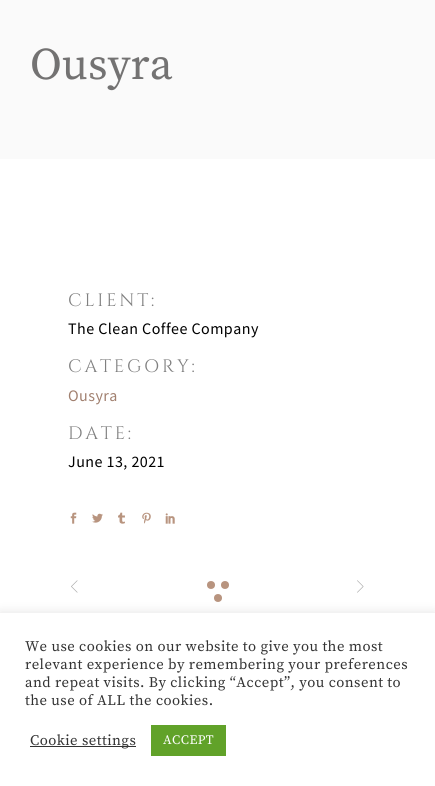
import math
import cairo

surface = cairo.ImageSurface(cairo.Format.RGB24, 435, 786)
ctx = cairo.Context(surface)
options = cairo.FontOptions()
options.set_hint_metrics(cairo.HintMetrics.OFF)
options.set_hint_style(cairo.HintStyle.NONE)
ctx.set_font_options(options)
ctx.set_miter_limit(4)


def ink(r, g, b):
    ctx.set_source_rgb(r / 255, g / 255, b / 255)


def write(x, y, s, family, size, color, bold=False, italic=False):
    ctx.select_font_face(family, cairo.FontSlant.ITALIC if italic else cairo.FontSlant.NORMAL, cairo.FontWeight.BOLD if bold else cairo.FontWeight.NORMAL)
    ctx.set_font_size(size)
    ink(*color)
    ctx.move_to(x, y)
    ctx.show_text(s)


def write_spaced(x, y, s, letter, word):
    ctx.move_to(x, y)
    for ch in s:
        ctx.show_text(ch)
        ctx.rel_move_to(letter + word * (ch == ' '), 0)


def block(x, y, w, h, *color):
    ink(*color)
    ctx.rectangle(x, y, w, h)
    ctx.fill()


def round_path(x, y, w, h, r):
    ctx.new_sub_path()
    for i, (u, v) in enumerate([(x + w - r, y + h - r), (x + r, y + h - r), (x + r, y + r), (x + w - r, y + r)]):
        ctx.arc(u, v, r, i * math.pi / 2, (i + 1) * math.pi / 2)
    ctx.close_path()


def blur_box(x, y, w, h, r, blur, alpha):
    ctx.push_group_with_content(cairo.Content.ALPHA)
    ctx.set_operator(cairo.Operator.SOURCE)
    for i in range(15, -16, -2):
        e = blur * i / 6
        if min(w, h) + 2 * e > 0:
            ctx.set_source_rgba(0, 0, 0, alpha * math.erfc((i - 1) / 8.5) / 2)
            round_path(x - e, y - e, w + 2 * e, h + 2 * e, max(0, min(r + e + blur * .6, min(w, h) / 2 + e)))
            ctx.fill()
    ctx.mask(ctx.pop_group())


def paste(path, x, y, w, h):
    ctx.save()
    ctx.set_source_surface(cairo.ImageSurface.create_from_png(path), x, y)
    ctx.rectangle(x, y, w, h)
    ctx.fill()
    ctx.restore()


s1 = dict(family="Source Serif Pro", size=45, color=(115, 114, 114))

ink(255, 255, 255)
ctx.paint()
block(0, 0, 435, 159, 250, 250, 250)
write(30, 79, "Ousyra", **s1)
ctx.select_font_face("Cinzel")
ctx.set_font_size(18)
ink(128, 128, 128)
write_spaced(68, 306, "CLIENT:", 2.75, 0)
ctx.select_font_face("Source Sans Pro")
ctx.set_font_size(16)
ink(0, 0, 0)
write_spaced(68, 334, "The Clean Coffee Company", 0.45, 0)
ctx.select_font_face("Cinzel")
ctx.set_font_size(18)
ink(128, 128, 128)
write_spaced(68, 372, "CATEGORY:", 2.75, 0)
ctx.select_font_face("Source Sans Pro")
ctx.set_font_size(16)
ink(161, 128, 111)
write_spaced(68, 401, "Ousyra", 0.45, 0)
ctx.select_font_face("Cinzel")
ctx.set_font_size(18)
ink(128, 128, 128)
write_spaced(68, 439, "DATE:", 2.75, 0)
ctx.select_font_face("Source Sans Pro")
ctx.set_font_size(16)
ink(0, 0, 0)
write_spaced(68, 467, "June 13, 2021", 0.45, 0)
paste("pic1.png", 70, 512, 7, 12)
paste("pic2.png", 92, 513, 11, 10)
paste("pic3.png", 118, 512, 7, 12)
paste("pic4.png", 142, 512, 9, 12)
paste("pic5.png", 165, 513, 10, 11)
paste("pic6.png", 71, 580, 7, 13)
ink(184, 148, 127)
ctx.arc(211, 585, 4, 0, 2 * math.pi)
ctx.fill()
ctx.arc(225, 585, 4, 0, 2 * math.pi)
ctx.fill()
ctx.arc(218, 598, 4, 0, 2 * math.pi)
ctx.fill()
paste("pic7.png", 357, 580, 7, 13)
ink(172, 171, 171)
blur_box(0, 612, 435, 173, 0, 5, 0.3)
block(0, 613, 435, 173, 255, 255, 255)
ctx.select_font_face("Source Serif Pro")
ctx.set_font_size(14.7)
ink(51, 51, 51)
write_spaced(25, 651, "We use cookies on our website to give you the most", 0.45, 0)
write_spaced(25, 669, "relevant experience by remembering your preferences", 0.45, 0)
write_spaced(25, 687, "and repeat visits. By clicking “Accept”, you consent to", 0.45, 0)
write_spaced(25, 705, "the use of ALL the cookies.", 0.45, 0)
block(30, 746, 106, 1, 51, 51, 51)
write_spaced(30, 745, "Cookie settings", 0.45, 0)
block(151, 725, 75, 31, 97, 162, 41)
ctx.set_font_size(13)
ink(255, 255, 255)
write_spaced(163, 744, "ACCEPT", 0.45, 0)
surface.write_to_png("screenshot.png")
